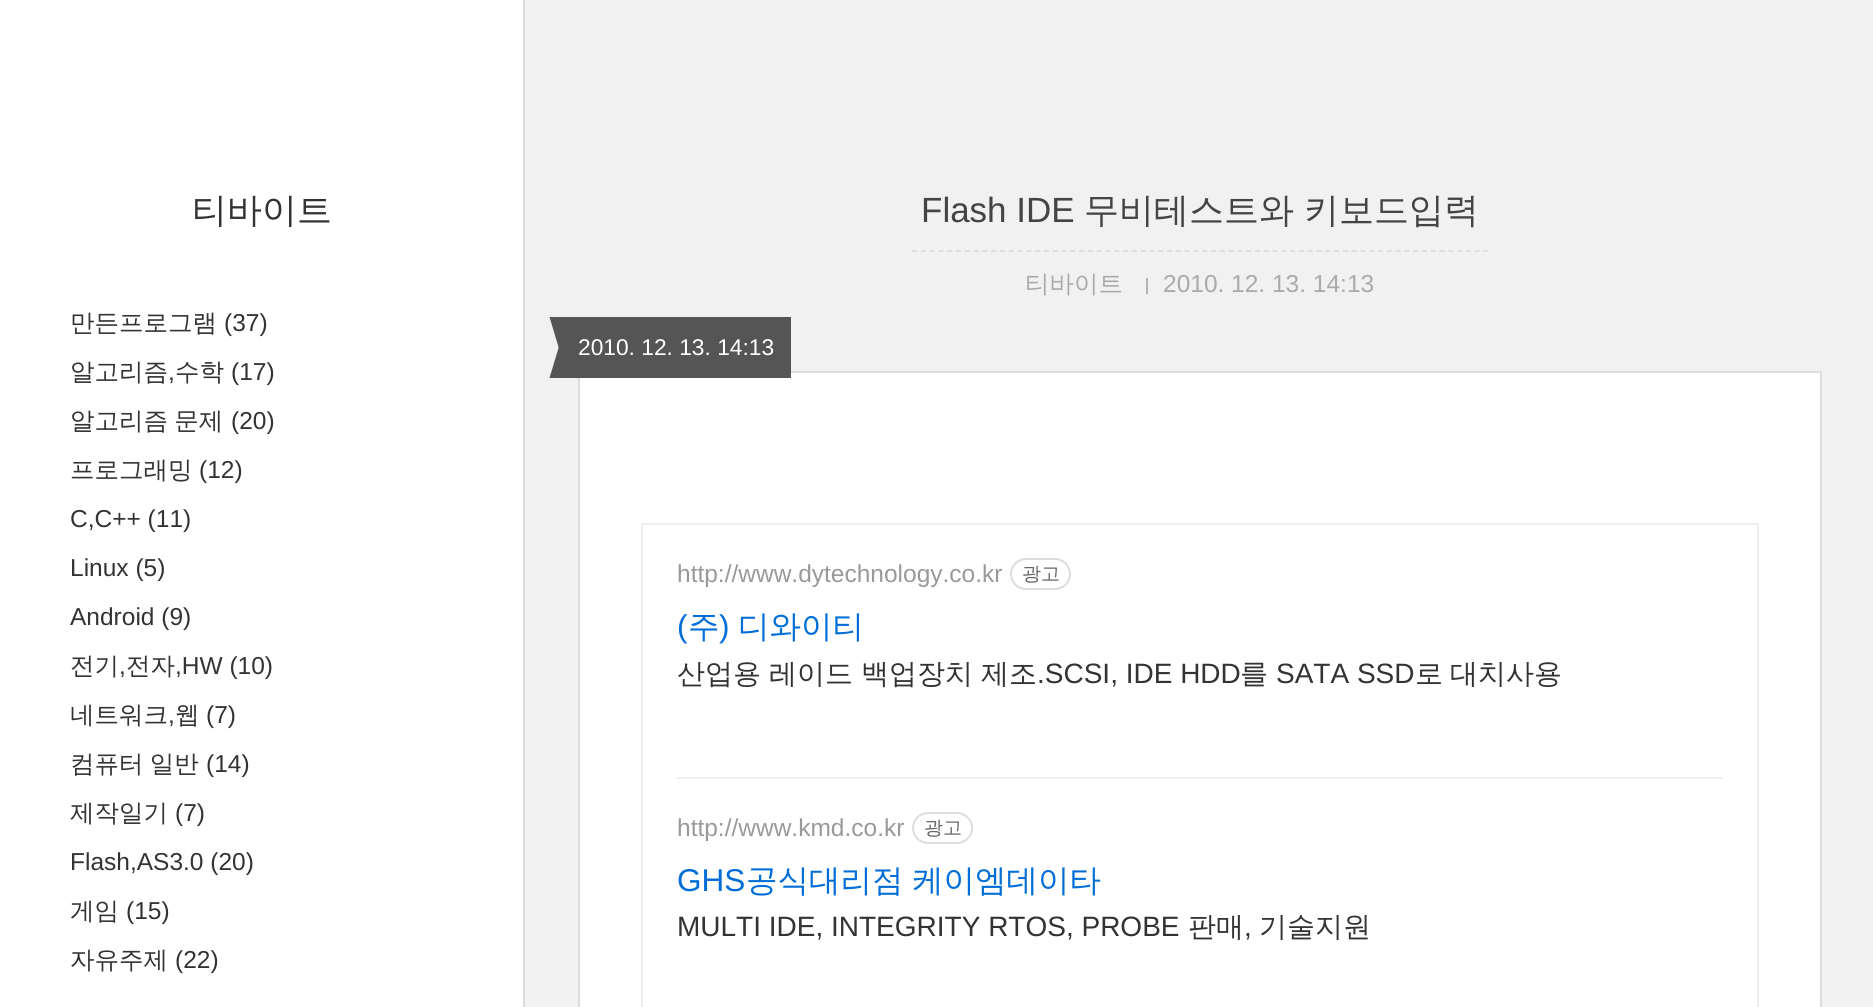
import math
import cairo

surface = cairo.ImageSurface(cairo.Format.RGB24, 1873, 1007)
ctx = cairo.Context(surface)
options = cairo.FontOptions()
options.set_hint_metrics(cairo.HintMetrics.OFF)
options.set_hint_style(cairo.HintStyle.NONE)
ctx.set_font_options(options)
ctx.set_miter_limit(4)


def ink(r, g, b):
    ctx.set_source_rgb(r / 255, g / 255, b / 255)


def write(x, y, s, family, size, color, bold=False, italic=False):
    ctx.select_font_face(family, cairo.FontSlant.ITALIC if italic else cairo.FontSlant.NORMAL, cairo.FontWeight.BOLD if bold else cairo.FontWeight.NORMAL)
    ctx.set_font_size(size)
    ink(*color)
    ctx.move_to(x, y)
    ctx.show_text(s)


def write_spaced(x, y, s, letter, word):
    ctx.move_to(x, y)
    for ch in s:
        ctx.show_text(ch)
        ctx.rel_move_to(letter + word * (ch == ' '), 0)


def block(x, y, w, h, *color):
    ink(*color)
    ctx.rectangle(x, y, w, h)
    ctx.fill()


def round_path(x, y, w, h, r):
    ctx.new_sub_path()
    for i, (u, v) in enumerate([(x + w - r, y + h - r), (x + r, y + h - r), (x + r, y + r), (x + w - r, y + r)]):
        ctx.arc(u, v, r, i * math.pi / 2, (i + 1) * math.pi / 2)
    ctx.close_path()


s1 = dict(family="WenQuanYi Zen Hei Medium", size=35, color=(51, 51, 51))
s2 = dict(family="WenQuanYi Zen Hei Medium", size=24.5, color=(51, 51, 51))
s3 = dict(family="Liberation Sans", size=24.5, color=(51, 51, 51))
s4 = dict(family="Liberation Sans", size=35, color=(68, 68, 68))
s5 = dict(family="WenQuanYi Zen Hei Medium", size=35, color=(68, 68, 68))
s6 = dict(family="WenQuanYi Zen Hei Medium", size=24.5, color=(170, 170, 170))
s7 = dict(family="Liberation Sans", size=24.5, color=(170, 170, 170))
s8 = dict(family="Liberation Sans", size=22.75, color=(255, 255, 255))
s9 = dict(family="Liberation Sans", size=24.5, color=(153, 153, 153))
s10 = dict(family="WenQuanYi Zen Hei Medium", size=19, color=(102, 102, 102))
s11 = dict(family="Liberation Sans", size=31.5, color=(1, 109, 215))
s12 = dict(family="WenQuanYi Zen Hei Medium", size=31.5, color=(1, 109, 215))
s13 = dict(family="WenQuanYi Zen Hei Medium", size=28, color=(51, 51, 51))
s14 = dict(family="Liberation Sans", size=28, color=(51, 51, 51))

ink(241, 241, 241)
ctx.paint()
block(0, 0, 523, 1007, 255, 255, 255)
block(523, 0, 2, 1007, 221, 221, 221)
write(192, 222, "티바이트", **s1)
write(70, 331, "만든프로그램", **s2)
write(224, 331, "(37)", **s3)
write(70, 380, "알고리즘", **s2)
write(168, 380, ",", **s3)
write(175, 380, "수학", **s2)
write(231, 380, "(17)", **s3)
ctx.select_font_face("WenQuanYi Zen Hei Medium")
write_spaced(70, 429, "알고리즘 문제", 0, -1)
write(231, 429, "(20)", **s3)
write(70, 478, "프로그래밍", **s2)
write(199, 478, "(12)", **s3)
write(70, 527, "C,C++ (11)", **s3)
write(70, 576, "Linux (5)", **s3)
write(70, 625, "Android (9)", **s3)
write(70, 674, "전기", **s2)
write(119, 674, ",", **s3)
write(126, 674, "전자", **s2)
write(175, 674, ",HW (10)", **s3)
write(70, 723, "네트워크", **s2)
write(168, 723, ",", **s3)
write(175, 723, "웹", **s2)
write(206, 723, "(7)", **s3)
ctx.select_font_face("WenQuanYi Zen Hei Medium")
write_spaced(70, 772, "컴퓨터 일반", 0, -1)
write(206, 772, "(14)", **s3)
write(70, 821, "제작일기", **s2)
write(175, 821, "(7)", **s3)
write(70, 870, "Flash,AS3.0 (20)", **s3)
write(70, 919, "게임", **s2)
write(126, 919, "(15)", **s3)
write(70, 968, "자유주제", **s2)
write(175, 968, "(22)", **s3)
ctx.new_path()
ctx.move_to(912, 251)
ctx.line_to(1487.5, 251)
ink(221, 221, 221)
ctx.set_line_width(1.8)
ctx.set_dash([5.25, 3.54])
ctx.stroke()
write(921, 222, "Flash IDE", **s4)
write(1084, 222, "무비테스트와", **s5)
write(1304, 222, "키보드입력", **s5)
write(1025, 292, "티바이트", **s6)
block(1146, 278, 2, 16, 179, 179, 179)
write(1163, 292, "2010. 12. 13. 14:13", **s7)
ink(255, 255, 255)
ctx.rectangle(579, 372, 1242, 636)
ctx.fill_preserve()
ink(221, 221, 221)
ctx.set_line_width(2)
ctx.set_dash([])
ctx.stroke()
block(560, 317, 231, 61, 85, 85, 85)
ctx.new_path()
ctx.move_to(549.5, 317)
ctx.line_to(560, 317)
ctx.line_to(560, 352)
ctx.close_path()
ctx.fill()
write(578, 355, "2010. 12. 13. 14:13", **s8)
ink(85, 85, 85)
ctx.new_path()
ctx.move_to(560, 378)
ctx.line_to(549.5, 378)
ctx.line_to(560, 343)
ctx.close_path()
ctx.fill()
ctx.rectangle(642, 524, 1116, 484)
ink(238, 238, 238)
ctx.stroke()
write(677, 582, "http://www.dytechnology.co.kr", **s9)
round_path(1011, 559, 59, 30, 15)
ink(221, 221, 221)
ctx.stroke()
write(1022, 580, "광고", **s10)
write(677, 637, "(", **s11)
write(688, 637, "주", **s12)
write(719, 637, ")", **s11)
write(738, 637, "디와이티", **s12)
write(677, 683, "산업용", **s13)
write(769, 683, "레이드", **s13)
write(861, 683, "백업장치", **s13)
write(981, 683, "제조", **s13)
write(1037, 683, ".SCSI, IDE HDD", **s14)
write(1240, 683, "를", **s13)
write(1276, 683, "SATA SSD", **s14)
write(1415, 683, "로", **s13)
write(1450, 683, "대치사용", **s13)
block(677, 777, 1045, 2, 238, 238, 238)
write(677, 836, "http://www.kmd.co.kr", **s9)
round_path(913, 813, 59, 30, 15)
ink(221, 221, 221)
ctx.stroke()
write(924, 834, "광고", **s10)
write(677, 891, "GHS", **s11)
ctx.select_font_face("WenQuanYi Zen Hei Medium")
write_spaced(746, 891, "공식대리점 케이엠데이타", 0, -1)
write(677, 936, "MULTI IDE, INTEGRITY RTOS, PROBE", **s14)
write(1188, 936, "판매", **s13)
write(1244, 936, ",", **s14)
write(1259, 936, "기술지원", **s13)
surface.write_to_png("screenshot.png")
